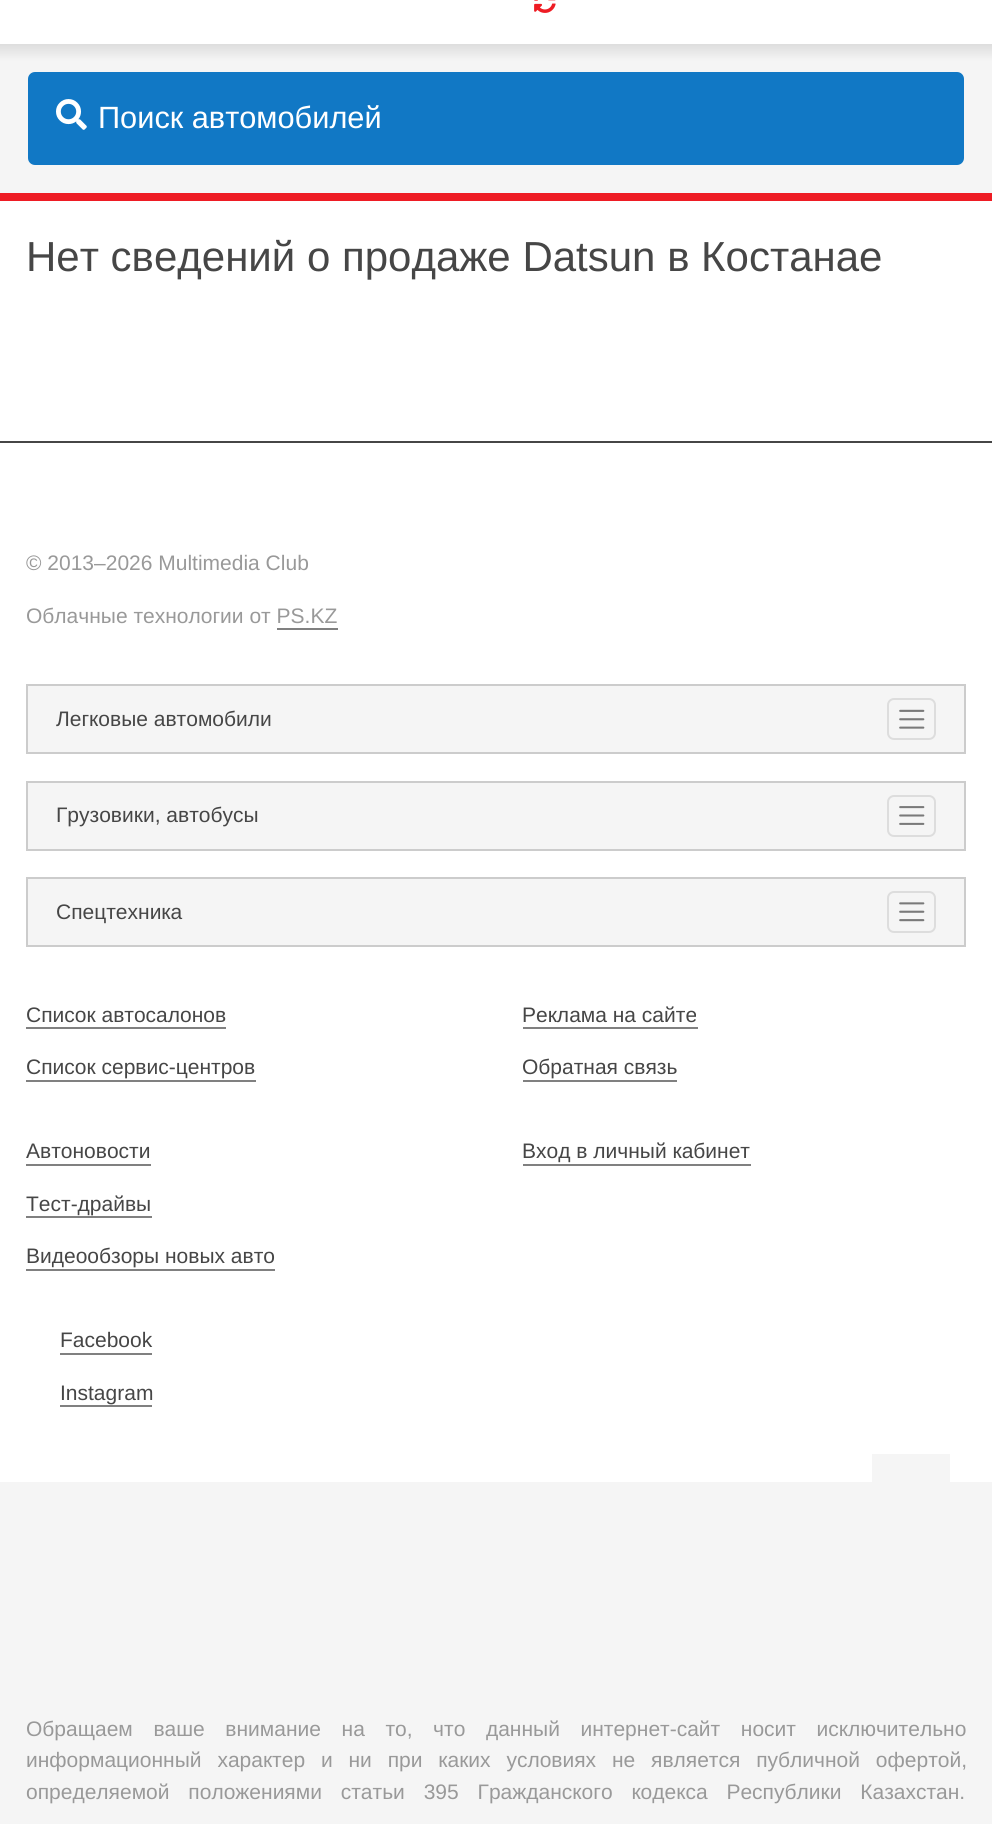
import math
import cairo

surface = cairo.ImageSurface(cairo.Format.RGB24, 992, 1824)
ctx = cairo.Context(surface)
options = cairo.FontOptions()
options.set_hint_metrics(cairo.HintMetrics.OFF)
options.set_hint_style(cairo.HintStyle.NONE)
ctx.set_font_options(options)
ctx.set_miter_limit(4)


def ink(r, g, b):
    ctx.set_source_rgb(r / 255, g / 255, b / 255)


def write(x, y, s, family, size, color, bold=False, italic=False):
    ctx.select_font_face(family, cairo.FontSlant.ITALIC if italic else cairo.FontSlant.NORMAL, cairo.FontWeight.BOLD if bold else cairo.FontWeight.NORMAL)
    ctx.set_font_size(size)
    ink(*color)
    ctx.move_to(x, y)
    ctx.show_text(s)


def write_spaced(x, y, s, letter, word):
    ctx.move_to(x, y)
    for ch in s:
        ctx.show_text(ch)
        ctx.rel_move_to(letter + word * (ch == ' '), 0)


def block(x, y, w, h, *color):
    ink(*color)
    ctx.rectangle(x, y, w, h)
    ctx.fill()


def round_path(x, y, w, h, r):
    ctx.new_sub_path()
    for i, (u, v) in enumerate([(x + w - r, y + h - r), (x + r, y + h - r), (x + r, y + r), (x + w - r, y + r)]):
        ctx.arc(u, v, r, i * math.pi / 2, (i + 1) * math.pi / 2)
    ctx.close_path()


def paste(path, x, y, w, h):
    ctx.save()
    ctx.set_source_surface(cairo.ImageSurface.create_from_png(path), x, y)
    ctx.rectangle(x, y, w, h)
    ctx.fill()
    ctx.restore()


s1 = dict(family="Liberation Sans", size=30.75, color=(255, 255, 255))
s2 = dict(family="Liberation Sans", size=42, color=(70, 70, 70))
s3 = dict(family="Liberation Sans", size=21, color=(153, 153, 153))
s4 = dict(family="Liberation Sans", size=21, color=(70, 70, 70))

ink(255, 255, 255)
ctx.paint()
block(0, 61, 992, 132, 245, 245, 245)
block(0, 193, 992, 8, 238, 28, 36)
paste("pic1.png", 534, 0, 22, 13)
gradient = cairo.LinearGradient(496, 44, 496, 61)
gradient.add_color_stop_rgba(0, 0.867, 0.867, 0.867, 1)
gradient.add_color_stop_rgba(1, 0.961, 0.961, 0.961, 1)
ctx.set_source(gradient)
ctx.rectangle(0, 44, 992, 17)
ctx.fill()
ink(17, 120, 197)
round_path(28, 72, 936, 93, 7)
ctx.fill()
paste("pic2.png", 56, 99, 31, 31)
write(98, 128, "Поиск автомобилей", **s1)
write(26, 271, "Нет сведений о продаже Datsun в Костанае", **s2)
block(0, 441, 992, 2, 70, 70, 70)
write(26, 570, "© 2013–2026 Multimedia Club", **s3)
write(26, 623, "Облачные технологии от PS.KZ", **s3)
block(277, 628, 61, 2, 128, 128, 128)
ink(245, 245, 245)
ctx.rectangle(27, 685, 938, 68)
ctx.fill_preserve()
ink(204, 204, 204)
ctx.stroke()
write(56, 726, "Легковые автомобили", **s4)
round_path(888, 699, 47, 40, 6)
ink(221, 221, 221)
ctx.stroke()
paste("pic3.png", 899, 709, 26, 20)
ink(245, 245, 245)
ctx.rectangle(27, 782, 938, 68)
ctx.fill_preserve()
ink(204, 204, 204)
ctx.stroke()
write(56, 822, "Грузовики, автобусы", **s4)
round_path(888, 796, 47, 40, 6)
ink(221, 221, 221)
ctx.stroke()
paste("pic4.png", 899, 806, 26, 19)
ink(245, 245, 245)
ctx.rectangle(27, 878, 938, 68)
ctx.fill_preserve()
ink(204, 204, 204)
ctx.stroke()
write(56, 919, "Спецтехника", **s4)
round_path(888, 892, 47, 40, 6)
ink(221, 221, 221)
ctx.stroke()
paste("pic5.png", 899, 902, 26, 20)
write(26, 1022, "Список автосалонов", **s4)
block(26, 1027, 200, 2, 128, 128, 128)
write(26, 1074, "Список сервис-центров", **s4)
block(26, 1080, 230, 2, 128, 128, 128)
write(26, 1158, "Автоновости", **s4)
block(26, 1164, 125, 2, 128, 128, 128)
write(26, 1211, "Тест-драйвы", **s4)
block(26, 1216, 126, 2, 128, 128, 128)
write(26, 1263, "Видеообзоры новых авто", **s4)
block(26, 1269, 249, 2, 128, 128, 128)
write(522, 1022, "Реклама на сайте", **s4)
block(523, 1027, 175, 2, 128, 128, 128)
write(522, 1074, "Обратная связь", **s4)
block(523, 1080, 154, 2, 128, 128, 128)
write(522, 1158, "Вход в личный кабинет", **s4)
block(523, 1164, 228, 2, 128, 128, 128)
write(60, 1347, "Facebook", **s4)
block(60, 1353, 92, 2, 128, 128, 128)
write(60, 1400, "Instagram", **s4)
block(60, 1405, 92, 2, 128, 128, 128)
block(0, 1482, 992, 342, 245, 245, 245)
ink(153, 153, 153)
write_spaced(26, 1736, "Обращаем ваше внимание на то, что данный интернет-сайт носит исключительно", 0, 14.75)
write_spaced(26, 1767, "информационный характер и ни при каких условиях не является публичной офертой,", 0, 10)
write_spaced(26, 1799, "определяемой положениями статьи 395 Гражданского кодекса Республики Казахстан.", 0, 13)
block(872, 1454, 78, 28, 245, 245, 245)
surface.write_to_png("screenshot.png")
